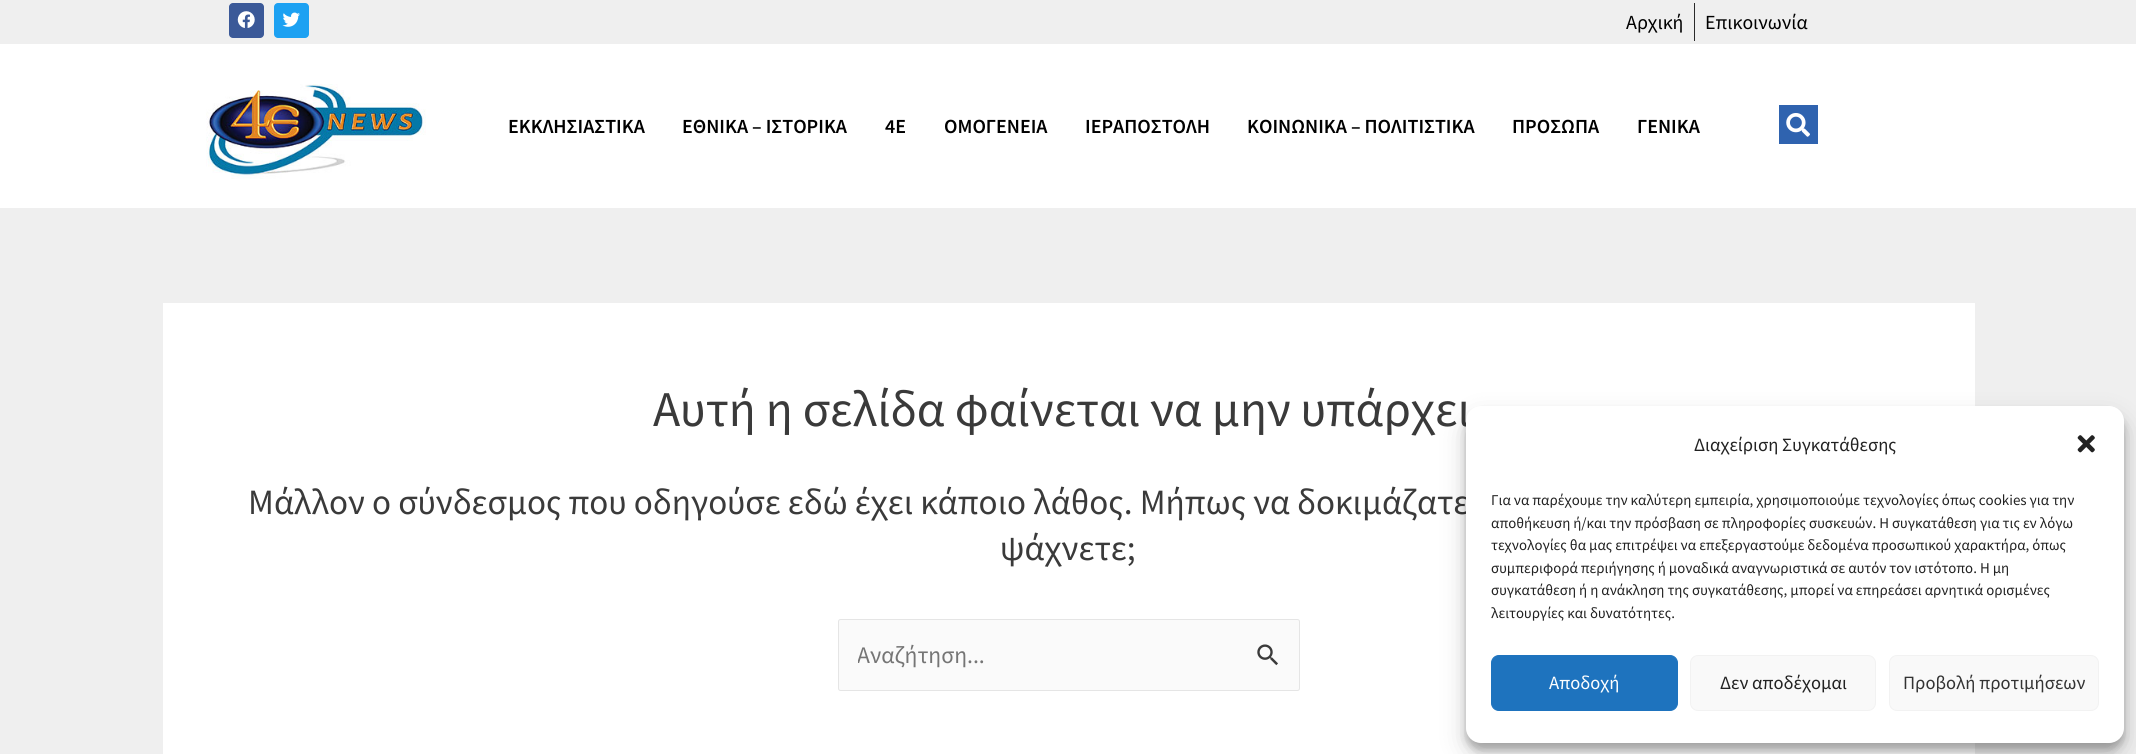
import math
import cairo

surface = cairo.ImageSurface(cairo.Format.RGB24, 2136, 754)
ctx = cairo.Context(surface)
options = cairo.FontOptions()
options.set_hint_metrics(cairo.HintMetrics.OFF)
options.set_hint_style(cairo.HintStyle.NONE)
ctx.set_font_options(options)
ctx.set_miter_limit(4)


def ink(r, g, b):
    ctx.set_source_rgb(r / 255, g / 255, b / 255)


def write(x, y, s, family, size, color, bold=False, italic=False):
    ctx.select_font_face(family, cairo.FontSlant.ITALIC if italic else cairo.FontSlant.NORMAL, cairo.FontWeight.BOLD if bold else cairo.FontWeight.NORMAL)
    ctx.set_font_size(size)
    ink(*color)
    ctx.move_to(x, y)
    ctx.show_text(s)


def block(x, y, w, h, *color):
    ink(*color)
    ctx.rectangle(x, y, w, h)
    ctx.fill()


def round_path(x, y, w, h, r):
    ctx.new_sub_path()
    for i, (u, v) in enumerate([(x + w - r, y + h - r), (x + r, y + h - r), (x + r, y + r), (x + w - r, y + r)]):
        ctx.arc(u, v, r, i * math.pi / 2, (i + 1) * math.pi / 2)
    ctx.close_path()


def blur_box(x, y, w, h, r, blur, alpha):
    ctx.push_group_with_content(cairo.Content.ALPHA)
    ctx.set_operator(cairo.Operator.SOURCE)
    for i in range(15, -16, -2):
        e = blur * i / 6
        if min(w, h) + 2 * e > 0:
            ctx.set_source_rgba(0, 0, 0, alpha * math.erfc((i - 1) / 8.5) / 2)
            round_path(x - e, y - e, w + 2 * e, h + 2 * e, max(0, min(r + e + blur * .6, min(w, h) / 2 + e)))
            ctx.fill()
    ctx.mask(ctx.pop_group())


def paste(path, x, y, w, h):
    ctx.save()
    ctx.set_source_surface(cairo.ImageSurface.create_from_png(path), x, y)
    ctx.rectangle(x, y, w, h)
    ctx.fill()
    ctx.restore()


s1 = dict(family="Source Sans Pro", size=20, color=(0, 0, 0))
s2 = dict(family="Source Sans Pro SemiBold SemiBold", size=20, color=(0, 0, 0))
s3 = dict(family="Source Sans Pro", size=50, color=(58, 58, 58))
s4 = dict(family="Source Sans Pro", size=35.6, color=(58, 58, 58))
s5 = dict(family="Source Sans Pro", size=23.75, color=(117, 117, 117))
s6 = dict(family="Source Sans Pro", size=18.75, color=(34, 34, 34))
s7 = dict(family="Source Sans Pro", size=15, color=(34, 34, 34))
s8 = dict(family="Source Sans Pro", size=18.75, color=(255, 255, 255))
s9 = dict(family="Source Sans Pro", size=18.75, color=(51, 51, 51))

ink(239, 239, 239)
ctx.paint()
ink(59, 89, 152)
round_path(229, 3, 35, 35, 4)
ctx.fill()
paste("pic1.png", 237, 11, 18, 17)
ink(29, 161, 242)
round_path(274, 3, 35, 35, 4)
ctx.fill()
paste("pic2.png", 282, 12, 18, 15)
write(1626, 29, "Αρχική", **s1)
block(1694, 3, 1, 38, 42, 42, 42)
write(1705, 29, "Επικοινωνία", **s1)
block(0, 44, 2136, 164, 255, 255, 255)
paste("pic3.png", 206, 84, 220, 95)
write(508, 133, "ΕΚΚΛΗΣΙΑΣΤΙΚΑ", **s2)
write(682, 133, "ΕΘΝΙΚΑ – ΙΣΤΟΡΙΚΑ", **s2)
write(885, 133, "4Ε", **s2)
write(944, 133, "ΟΜΟΓΕΝΕΙΑ", **s2)
write(1085, 133, "ΙΕΡΑΠΟΣΤΟΛΗ", **s2)
write(1247, 133, "ΚΟΙΝΩΝΙΚΑ – ΠΟΛΙΤΙΣΤΙΚΑ", **s2)
write(1512, 133, "ΠΡΟΣΩΠΑ", **s2)
write(1637, 133, "ΓΕΝΙΚΑ", **s2)
block(1779, 105, 39, 39, 47, 99, 175)
paste("pic4.png", 1786, 113, 24, 24)
block(163, 303, 1812, 451, 255, 255, 255)
write(653, 426, "Αυτή η σελίδα φαίνεται να μην υπάρχει", **s3)
write(248, 514, "Μάλλον ο σύνδεσμος που οδηγούσε εδώ έχει κάποιο λάθος. Μήπως να δοκιμάζατε", **s4)
write(1000, 560, "ψάχνετε;", **s4)
ink(250, 250, 250)
round_path(838.5, 619.5, 461, 71, 2)
ctx.fill_preserve()
ink(229, 229, 229)
ctx.set_line_width(1)
ctx.stroke()
ctx.save()
ctx.rectangle(858, 639, 380, 30)
ctx.clip()
write(857, 663, "Αναζήτηση...", **s5)
ctx.restore()
paste("pic5.png", 1257, 644, 21, 22)
ink(0, 0, 0)
blur_box(1466, 414, 658, 336, 15, 4, 0.23)
blur_box(1466, 419, 658, 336, 15, 12.5, 0.19)
ink(255, 255, 255)
round_path(1466, 406, 658, 337, 15)
ctx.fill()
write(1694, 451, "Διαχείριση Συγκατάθεσης", **s6)
paste("pic6.png", 2077, 435, 18, 18)
write(1491, 505, "Για να παρέχουμε την καλύτερη εμπειρία, χρησιμοποιούμε τεχνολογίες όπως cookies για την", **s7)
write(1491, 528, "αποθήκευση ή/και την πρόσβαση σε πληροφορίες συσκευών. Η συγκατάθεση για τις εν λόγω", **s7)
write(1491, 550, "τεχνολογίες θα μας επιτρέψει να επεξεργαστούμε δεδομένα προσωπικού χαρακτήρα, όπως", **s7)
write(1491, 573, "συμπεριφορά περιήγησης ή μοναδικά αναγνωριστικά σε αυτόν τον ιστότοπο. Η μη", **s7)
write(1491, 595, "συγκατάθεση ή η ανάκληση της συγκατάθεσης, μπορεί να επηρεάσει αρνητικά ορισμένες", **s7)
write(1491, 618, "λειτουργίες και δυνατότητες.", **s7)
ink(30, 115, 190)
round_path(1491.5, 655.5, 186, 55, 7.5)
ctx.fill_preserve()
ctx.stroke()
write(1549, 689, "Αποδοχή", **s8)
ink(249, 249, 249)
round_path(1690.5, 655.5, 185, 55, 7.5)
ctx.fill_preserve()
ink(242, 242, 242)
ctx.stroke()
write(1720, 689, "Δεν αποδέχομαι", **s6)
ink(249, 249, 249)
round_path(1889.5, 655.5, 209, 55, 7.5)
ctx.fill_preserve()
ink(242, 242, 242)
ctx.stroke()
write(1903, 689, "Προβολή προτιμήσεων", **s9)
surface.write_to_png("screenshot.png")
